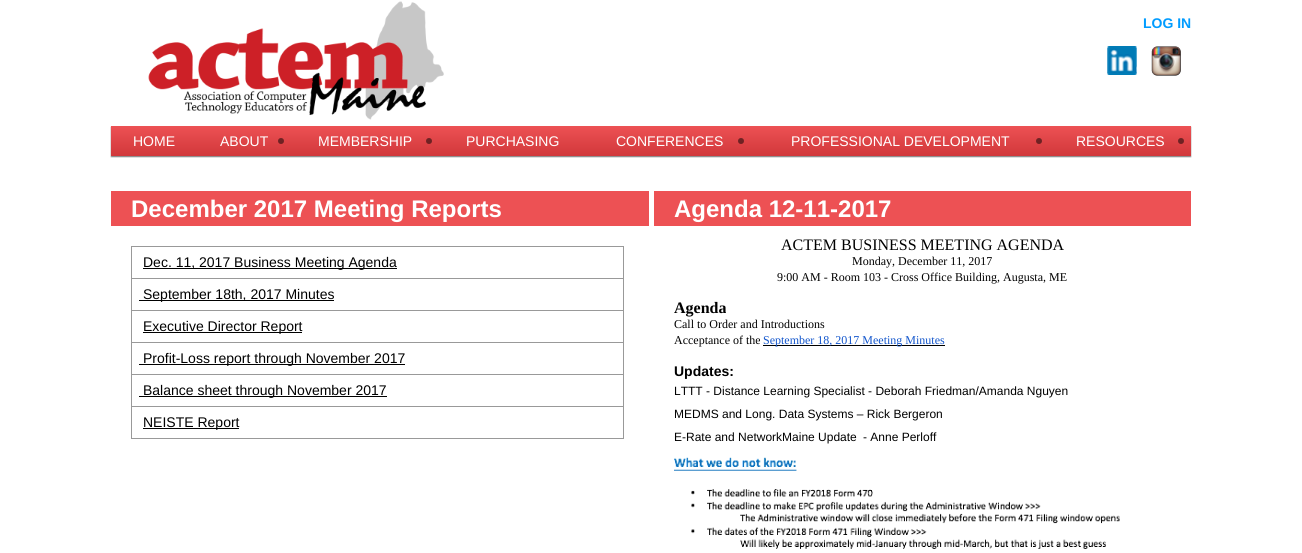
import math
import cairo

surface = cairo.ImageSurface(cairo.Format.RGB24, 1302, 553)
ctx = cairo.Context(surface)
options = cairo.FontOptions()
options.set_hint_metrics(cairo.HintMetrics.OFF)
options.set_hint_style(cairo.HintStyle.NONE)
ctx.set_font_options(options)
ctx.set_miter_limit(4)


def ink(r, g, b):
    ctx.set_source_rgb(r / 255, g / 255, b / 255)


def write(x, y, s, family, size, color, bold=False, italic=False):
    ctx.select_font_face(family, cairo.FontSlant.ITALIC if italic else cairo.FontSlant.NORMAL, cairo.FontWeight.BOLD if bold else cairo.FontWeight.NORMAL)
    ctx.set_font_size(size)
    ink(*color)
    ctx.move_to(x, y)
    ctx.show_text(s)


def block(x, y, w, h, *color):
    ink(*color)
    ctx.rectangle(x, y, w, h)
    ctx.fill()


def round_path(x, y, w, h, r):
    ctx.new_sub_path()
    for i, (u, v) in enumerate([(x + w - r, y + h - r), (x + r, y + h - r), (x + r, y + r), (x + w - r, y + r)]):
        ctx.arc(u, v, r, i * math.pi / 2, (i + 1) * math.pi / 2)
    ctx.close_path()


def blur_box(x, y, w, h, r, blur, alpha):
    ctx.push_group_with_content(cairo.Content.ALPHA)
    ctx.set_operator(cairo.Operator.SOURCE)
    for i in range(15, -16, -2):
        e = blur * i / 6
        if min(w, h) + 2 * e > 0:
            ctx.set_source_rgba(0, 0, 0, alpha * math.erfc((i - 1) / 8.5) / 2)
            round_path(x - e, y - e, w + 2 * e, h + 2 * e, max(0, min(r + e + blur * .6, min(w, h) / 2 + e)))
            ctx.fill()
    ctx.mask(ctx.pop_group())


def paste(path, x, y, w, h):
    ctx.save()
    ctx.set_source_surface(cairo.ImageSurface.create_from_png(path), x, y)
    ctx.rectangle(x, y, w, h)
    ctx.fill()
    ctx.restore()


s1 = dict(family="Liberation Sans", size=14, color=(0, 156, 255), bold=True)
s2 = dict(family="Liberation Sans", size=14, color=(255, 255, 255))
s3 = dict(family="Liberation Sans", size=24, color=(255, 255, 255), bold=True)
s4 = dict(family="Liberation Sans", size=14, color=(0, 0, 0))
s5 = dict(family="Liberation Serif", size=16, color=(0, 0, 0))
s6 = dict(family="Liberation Serif", size=12, color=(0, 0, 0))
s7 = dict(family="Liberation Serif", size=16, color=(0, 0, 0), bold=True)
s8 = dict(family="Liberation Serif", size=12, color=(17, 85, 204))
s9 = dict(family="Liberation Sans", size=14, color=(0, 0, 0), bold=True)
s10 = dict(family="Liberation Sans", size=12, color=(0, 0, 0))

ink(255, 255, 255)
ctx.paint()
paste("pic1.png", 148, 1, 296, 119)
write(1143, 28, "LOG IN", **s1)
paste("pic2.png", 1107, 46, 30, 29)
paste("pic3.png", 1151, 46, 30, 30)
ink(0, 0, 0)
blur_box(111, 127, 1080, 30, 0, 0.5, 0.5)
gradient = cairo.LinearGradient(154, 126, 154, 173)
gradient.add_color_stop_rgba(0, 0.929, 0.318, 0.329, 1)
gradient.add_color_stop_rgba(1, 0.757, 0.161, 0.173, 1)
ctx.set_source(gradient)
ctx.rectangle(111, 126, 86, 30)
ctx.fill()
write(133, 146, "HOME", **s2)
gradient = cairo.LinearGradient(244, 126, 244, 173)
gradient.add_color_stop_rgba(0, 0.929, 0.318, 0.329, 1)
gradient.add_color_stop_rgba(1, 0.757, 0.161, 0.173, 1)
ctx.set_source(gradient)
ctx.rectangle(197, 126, 94, 30)
ctx.fill()
write(220, 146, "ABOUT", **s2)
ctx.set_source_rgba(0, 0, 0, 0.5)
ctx.new_path()
ctx.arc(281, 141, 3, 0, 2 * math.pi)
ctx.fill()
gradient = cairo.LinearGradient(365, 126, 365, 173)
gradient.add_color_stop_rgba(0, 0.929, 0.318, 0.329, 1)
gradient.add_color_stop_rgba(1, 0.757, 0.161, 0.173, 1)
ctx.set_source(gradient)
ctx.rectangle(291, 126, 148, 30)
ctx.fill()
write(318, 146, "MEMBERSHIP", **s2)
ctx.set_source_rgba(0, 0, 0, 0.5)
ctx.new_path()
ctx.arc(429, 141, 3, 0, 2 * math.pi)
ctx.fill()
gradient = cairo.LinearGradient(513, 126, 513, 173)
gradient.add_color_stop_rgba(0, 0.929, 0.318, 0.329, 1)
gradient.add_color_stop_rgba(1, 0.757, 0.161, 0.173, 1)
ctx.set_source(gradient)
ctx.rectangle(439, 126, 148, 30)
ctx.fill()
write(466, 146, "PURCHASING", **s2)
gradient = cairo.LinearGradient(669, 126, 669, 173)
gradient.add_color_stop_rgba(0, 0.929, 0.318, 0.329, 1)
gradient.add_color_stop_rgba(1, 0.757, 0.161, 0.173, 1)
ctx.set_source(gradient)
ctx.rectangle(587, 126, 164, 30)
ctx.fill()
write(616, 146, "CONFERENCES", **s2)
ctx.set_source_rgba(0, 0, 0, 0.5)
ctx.new_path()
ctx.arc(741, 141, 3, 0, 2 * math.pi)
ctx.fill()
gradient = cairo.LinearGradient(900, 126, 900, 173)
gradient.add_color_stop_rgba(0, 0.929, 0.318, 0.329, 1)
gradient.add_color_stop_rgba(1, 0.757, 0.161, 0.173, 1)
ctx.set_source(gradient)
ctx.rectangle(751, 126, 298, 30)
ctx.fill()
write(791, 146, "PROFESSIONAL DEVELOPMENT", **s2)
ctx.set_source_rgba(0, 0, 0, 0.5)
ctx.new_path()
ctx.arc(1039, 141, 3, 0, 2 * math.pi)
ctx.fill()
gradient = cairo.LinearGradient(1120, 126, 1120, 173)
gradient.add_color_stop_rgba(0, 0.929, 0.318, 0.329, 1)
gradient.add_color_stop_rgba(1, 0.757, 0.161, 0.173, 1)
ctx.set_source(gradient)
ctx.rectangle(1049, 126, 142, 30)
ctx.fill()
write(1076, 146, "RESOURCES", **s2)
ctx.set_source_rgba(0, 0, 0, 0.5)
ctx.new_path()
ctx.arc(1181, 141, 3, 0, 2 * math.pi)
ctx.fill()
block(111, 191, 538, 35, 237, 81, 84)
write(131, 217, "December 2017 Meeting Reports", **s3)
block(131, 246, 493, 1, 153, 153, 153)
block(623, 246, 1, 193, 153, 153, 153)
block(131, 438, 493, 1, 153, 153, 153)
block(131, 246, 1, 193, 153, 153, 153)
block(143, 268, 254, 1, 0, 0, 0)
write(143, 267, "Dec. 11, 2017 Business Meeting Agenda", **s4)
block(131, 278, 493, 1, 153, 153, 153)
block(139, 300, 195, 1, 0, 0, 0)
write(143, 299, "September 18th, 2017 Minutes", **s4)
block(131, 310, 493, 1, 153, 153, 153)
block(143, 332, 159, 1, 0, 0, 0)
write(143, 331, "Executive Director Report", **s4)
block(131, 342, 493, 1, 153, 153, 153)
block(139, 364, 266, 1, 0, 0, 0)
write(143, 363, "Profit-Loss report through November 2017", **s4)
block(131, 374, 493, 1, 153, 153, 153)
block(139, 396, 248, 1, 0, 0, 0)
write(143, 395, "Balance sheet through November 2017", **s4)
block(131, 406, 493, 1, 153, 153, 153)
block(143, 428, 96, 1, 0, 0, 0)
write(143, 427, "NEISTE Report", **s4)
block(654, 191, 537, 35, 237, 81, 84)
write(674, 217, "Agenda 12-11-2017", **s3)
write(781, 250, "ACTEM BUSINESS MEETING AGENDA", **s5)
write(852, 265, "Monday, December 11, 2017", **s6)
write(777, 281, "9:00 AM - Room 103 - Cross Office Building, Augusta, ME", **s6)
write(674, 313, "Agenda", **s7)
write(674, 328, "Call to Order and Introductions", **s6)
write(674, 344, "Acceptance of the", **s6)
block(763, 345, 182, 1, 0, 0, 0)
write(763, 344, "September 18, 2017 Meeting Minutes", **s8)
write(674, 376, "Updates:", **s9)
write(674, 395, "LTTT - Distance Learning Specialist - Deborah Friedman/Amanda Nguyen", **s10)
write(674, 418, "MEDMS and Long. Data Systems – Rick Bergeron", **s10)
write(674, 441, "E-Rate and NetworkMaine Update", **s10)
write(863, 441, "- Anne Perloff", **s10)
paste("pic4.png", 674, 457, 446, 92)
surface.write_to_png("screenshot.png")
